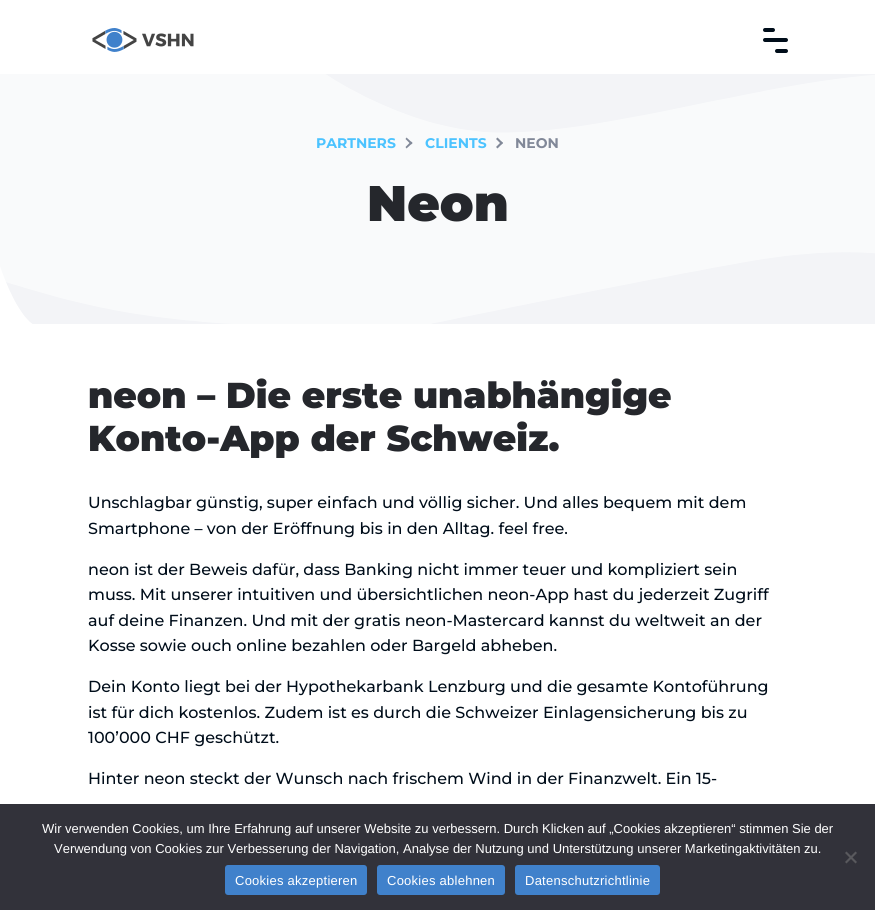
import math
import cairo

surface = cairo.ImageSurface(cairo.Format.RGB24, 875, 910)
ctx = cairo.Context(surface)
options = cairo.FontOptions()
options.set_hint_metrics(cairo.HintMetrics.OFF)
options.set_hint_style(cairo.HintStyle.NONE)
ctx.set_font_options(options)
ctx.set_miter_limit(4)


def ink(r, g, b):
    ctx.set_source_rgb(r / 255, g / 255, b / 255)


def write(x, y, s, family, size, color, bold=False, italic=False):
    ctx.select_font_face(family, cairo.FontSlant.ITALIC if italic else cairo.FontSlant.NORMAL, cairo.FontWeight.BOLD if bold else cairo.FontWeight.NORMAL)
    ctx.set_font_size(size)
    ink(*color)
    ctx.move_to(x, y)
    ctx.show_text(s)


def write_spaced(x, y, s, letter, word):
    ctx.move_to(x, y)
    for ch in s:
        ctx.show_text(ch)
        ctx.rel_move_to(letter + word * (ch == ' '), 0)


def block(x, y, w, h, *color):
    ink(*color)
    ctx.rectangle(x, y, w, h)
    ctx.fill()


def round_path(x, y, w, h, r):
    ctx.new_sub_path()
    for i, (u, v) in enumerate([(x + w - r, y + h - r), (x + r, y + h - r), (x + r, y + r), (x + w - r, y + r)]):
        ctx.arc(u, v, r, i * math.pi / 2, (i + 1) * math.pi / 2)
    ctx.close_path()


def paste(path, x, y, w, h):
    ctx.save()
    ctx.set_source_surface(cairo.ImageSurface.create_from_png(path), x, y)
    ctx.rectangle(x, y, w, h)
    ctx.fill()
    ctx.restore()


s1 = dict(family="Montserrat", size=14, color=(76, 195, 255), bold=True)
s2 = dict(family="Montserrat", size=14, color=(129, 136, 152), bold=True)
s3 = dict(family="Montserrat Black", size=50, color=(37, 39, 44))
s4 = dict(family="Montserrat Black", size=36, color=(37, 39, 44))
s5 = dict(family="Montserrat Medium", size=16, color=(0, 13, 26))
s6 = dict(family="Liberation Sans", size=13, color=(255, 255, 255))

ink(255, 255, 255)
ctx.paint()
paste("pic1.png", 92, 28, 102, 24)
ink(0, 13, 26)
round_path(763, 28, 12, 4, 2)
ctx.fill()
round_path(763, 38, 25, 4, 2)
ctx.fill()
round_path(775, 49, 13, 4, 2)
ctx.fill()
block(0, 74, 875, 250, 249, 250, 251)
paste("pic2.png", 0, 74, 875, 250)
write(316, 148, "PARTNERS", **s1)
ink(129, 136, 152)
ctx.new_path()
ctx.move_to(405.5, 139)
ctx.line_to(406.5, 137.5)
ctx.line_to(412.5, 143)
ctx.line_to(411, 144.5)
ctx.close_path()
ctx.fill()
ctx.new_path()
ctx.move_to(405.5, 147)
ctx.line_to(411, 141.5)
ctx.line_to(412.5, 143)
ctx.line_to(406.5, 148.5)
ctx.close_path()
ctx.fill()
write(425, 148, "CLIENTS", **s1)
ink(129, 136, 152)
ctx.new_path()
ctx.move_to(496, 139)
ctx.line_to(497.5, 137.5)
ctx.line_to(503, 143)
ctx.line_to(501.5, 144.5)
ctx.close_path()
ctx.fill()
ctx.new_path()
ctx.move_to(496, 147)
ctx.line_to(501.5, 141.5)
ctx.line_to(503, 143)
ctx.line_to(497.5, 148.5)
ctx.close_path()
ctx.fill()
write(515, 148, "NEON", **s2)
write(367, 221, "Neon", **s3)
write(88, 408, "neon – Die erste unabhängige", **s4)
write(88, 451, "Konto-App der Schweiz.", **s4)
write(88, 508, "Unschlagbar günstig, super einfach und völlig sicher. Und alles bequem mit dem", **s5)
write(88, 534, "Smartphone – von der Eröffnung bis in den Alltag. feel free.", **s5)
write(88, 575, "neon ist der Beweis dafür, dass Banking nicht immer teuer und kompliziert sein", **s5)
write(88, 600, "muss. Mit unserer intuitiven und übersichtlichen neon-App hast du jederzeit Zugriff", **s5)
write(88, 626, "auf deine Finanzen. Und mit der gratis neon-Mastercard kannst du weltweit an der", **s5)
write(88, 651, "Kosse sowie ouch online bezahlen oder Bargeld abheben.", **s5)
write(88, 692, "Dein Konto liegt bei der Hypothekarbank Lenzburg und die gesamte Kontoführung", **s5)
write(88, 718, "ist für dich kostenlos. Zudem ist es durch die Schweizer Einlagensicherung bis zu", **s5)
write(88, 743, "100’000 CHF geschützt.", **s5)
write(88, 784, "Hinter neon steckt der Wunsch nach frischem Wind in der Finanzwelt. Ein 15-", **s5)
block(0, 804, 875, 106, 50, 50, 58)
write(42, 833, "Wir verwenden Cookies, um Ihre Erfahrung auf unserer Website zu verbessern. Durch Klicken auf „Cookies akzeptieren“ stimmen Sie der", **s6)
write(54, 853, "Verwendung von Cookies zur Verbesserung der Navigation, Analyse der Nutzung und Unterstützung unserer Marketingaktivitäten zu.", **s6)
ink(89, 89, 93)
ctx.new_path()
ctx.move_to(855.5, 851.5)
ctx.line_to(857, 853)
ctx.line_to(846.5, 863.5)
ctx.line_to(845, 862)
ctx.close_path()
ctx.fill()
ctx.new_path()
ctx.move_to(845, 853)
ctx.line_to(846.5, 851.5)
ctx.line_to(857, 862)
ctx.line_to(855.5, 863.5)
ctx.close_path()
ctx.fill()
ink(64, 129, 203)
round_path(225, 865, 142, 30, 3)
ctx.fill()
ink(255, 255, 255)
write_spaced(235, 885, "Cookies akzeptieren", 0.25, 0)
ink(64, 129, 203)
round_path(377, 865, 128, 30, 3)
ctx.fill()
ink(255, 255, 255)
write_spaced(387, 885, "Cookies ablehnen", 0.25, 0)
ink(64, 129, 203)
round_path(515, 865, 145, 30, 3)
ctx.fill()
ink(255, 255, 255)
write_spaced(525, 885, "Datenschutzrichtlinie", 0.25, 0)
surface.write_to_png("screenshot.png")
